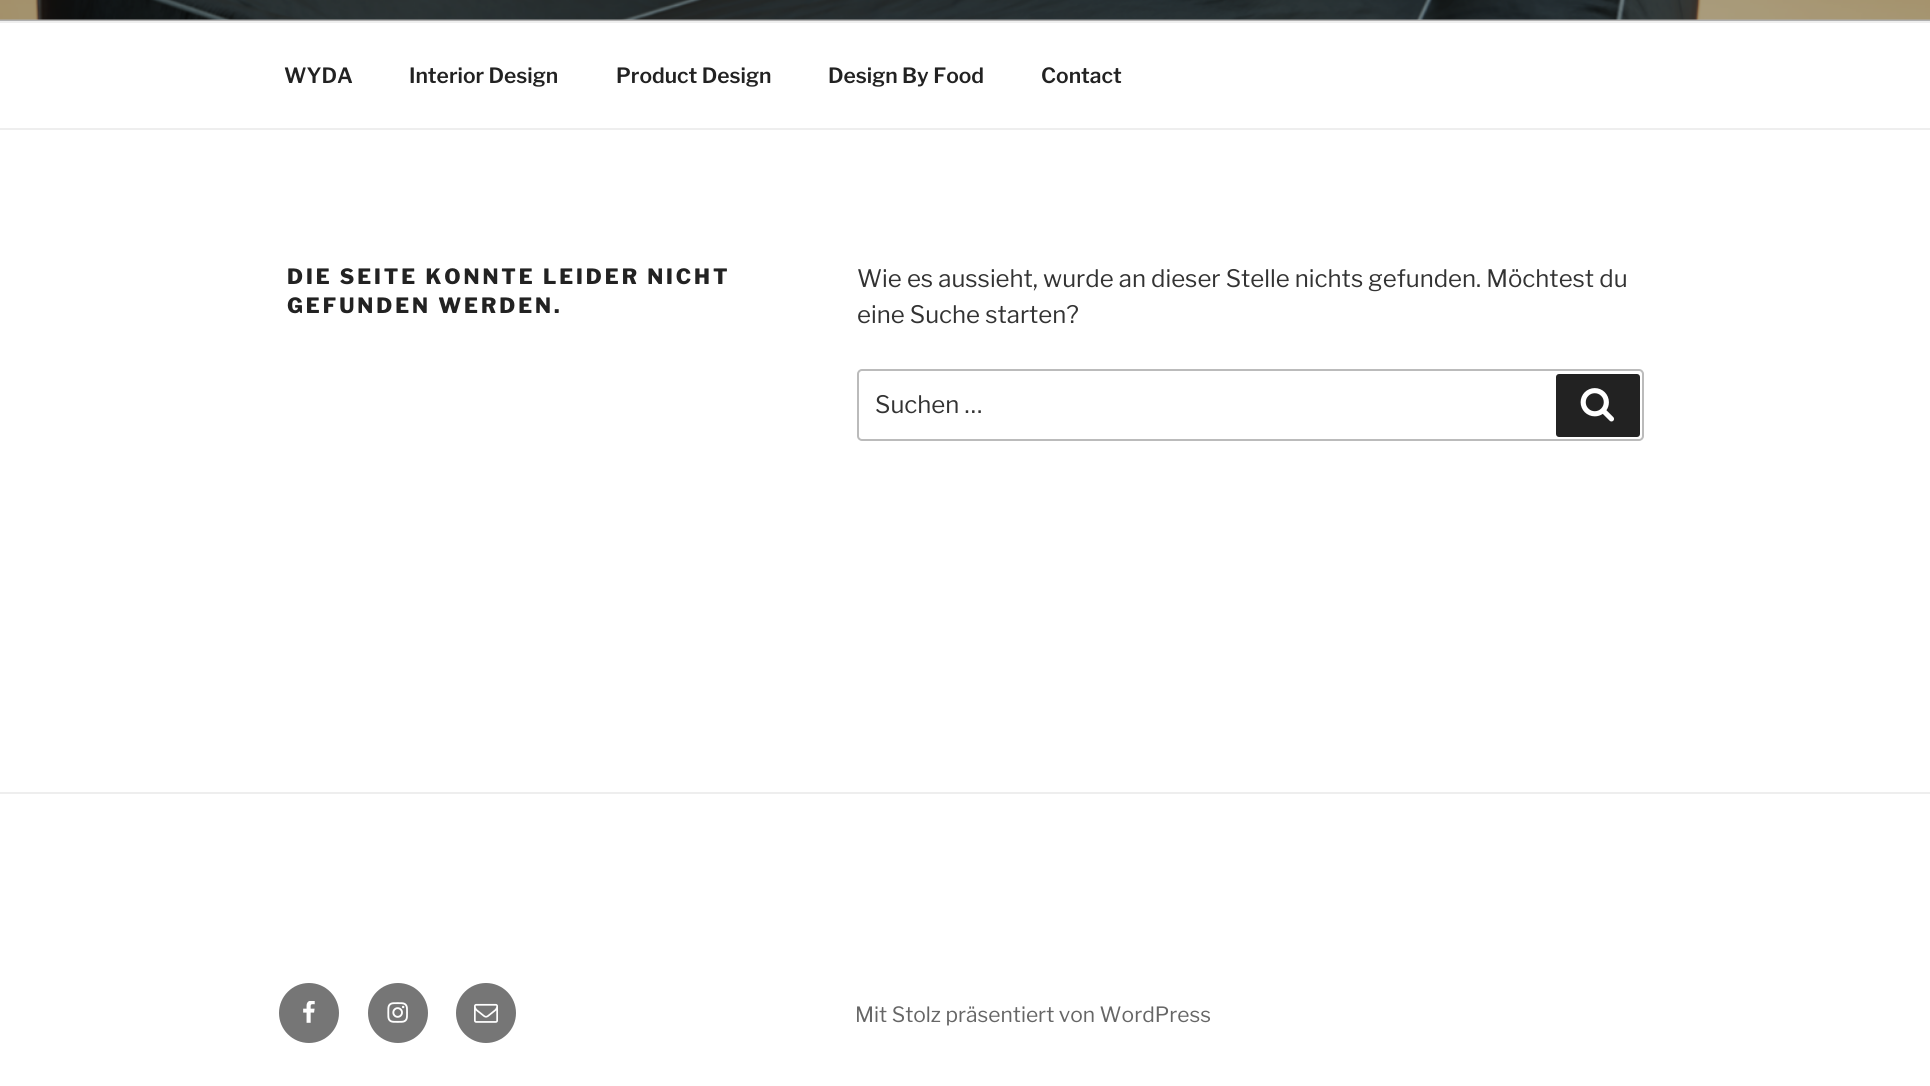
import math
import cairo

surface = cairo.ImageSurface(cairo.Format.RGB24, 1930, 1086)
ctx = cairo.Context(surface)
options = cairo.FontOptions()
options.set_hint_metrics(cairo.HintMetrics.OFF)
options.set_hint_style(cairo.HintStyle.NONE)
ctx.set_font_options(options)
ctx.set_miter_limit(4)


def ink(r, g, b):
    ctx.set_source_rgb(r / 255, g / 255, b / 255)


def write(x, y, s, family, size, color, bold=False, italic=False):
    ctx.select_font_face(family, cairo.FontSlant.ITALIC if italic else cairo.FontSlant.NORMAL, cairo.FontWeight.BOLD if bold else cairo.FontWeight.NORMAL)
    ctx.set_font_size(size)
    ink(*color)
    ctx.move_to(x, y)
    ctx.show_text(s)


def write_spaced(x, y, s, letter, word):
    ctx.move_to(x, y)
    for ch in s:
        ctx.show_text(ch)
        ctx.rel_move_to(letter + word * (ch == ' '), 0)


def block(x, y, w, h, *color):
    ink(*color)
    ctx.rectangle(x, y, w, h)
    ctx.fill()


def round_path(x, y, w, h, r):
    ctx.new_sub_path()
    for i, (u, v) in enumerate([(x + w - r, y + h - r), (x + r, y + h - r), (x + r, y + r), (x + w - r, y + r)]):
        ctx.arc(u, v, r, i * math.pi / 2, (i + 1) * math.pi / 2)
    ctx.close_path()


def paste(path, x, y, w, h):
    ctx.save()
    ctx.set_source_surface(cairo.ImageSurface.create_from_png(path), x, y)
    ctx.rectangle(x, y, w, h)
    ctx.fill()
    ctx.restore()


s1 = dict(family="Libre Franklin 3 Thin", size=21, color=(34, 34, 34))
s2 = dict(family="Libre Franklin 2 Thin", size=24, color=(51, 51, 51))
s3 = dict(family="Libre Franklin 2 Thin", size=21, color=(102, 102, 102))

ink(255, 255, 255)
ctx.paint()
block(0, 19, 1930, 2, 250, 250, 250)
paste("pic1.png", 0, 0, 1930, 20)
gradient = cairo.LinearGradient(965, -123, 965, 21)
gradient.add_color_stop_rgba(0, 0, 0, 0, 0)
gradient.add_color_stop_rgba(0.75, 0, 0, 0, 0.3)
gradient.add_color_stop_rgba(1, 0, 0, 0, 0.3)
ctx.set_source(gradient)
ctx.rectangle(0, 0, 1930, 21)
ctx.fill()
block(0, 21, 1930, 2, 238, 238, 238)
block(0, 128, 1930, 2, 238, 238, 238)
write(284, 83, "WYDA", **s1)
write(409, 83, "Interior Design", **s1)
write(616, 83, "Product Design", **s1)
write(828, 83, "Design By Food", **s1)
write(1041, 83, "Contact", **s1)
ctx.select_font_face("Libre Franklin Thin")
write_spaced(287, 284, "DIE SEITE KONNTE LEIDER NICHT", 2.95, 0)
write_spaced(287, 313, "GEFUNDEN WERDEN.", 2.95, 0)
write(857, 287, "Wie es aussieht, wurde an dieser Stelle nichts gefunden. Möchtest du", **s2)
write(857, 323, "eine Suche starten?", **s2)
round_path(858, 370, 785, 70, 4)
ink(187, 187, 187)
ctx.stroke()
write(875, 413, "Suchen …", **s2)
ink(34, 34, 34)
round_path(1556, 374, 84, 63, 3)
ctx.fill()
paste("pic2.png", 1580, 388, 34, 34)
block(0, 792, 1930, 2, 238, 238, 238)
ink(118, 118, 118)
ctx.arc(309, 1013, 30, 0, 2 * math.pi)
ctx.fill()
paste("pic3.png", 303, 1001, 12, 22)
ctx.arc(398, 1013, 30, 0, 2 * math.pi)
ctx.fill()
paste("pic4.png", 387, 1002, 21, 21)
ctx.arc(486, 1013, 30, 0, 2 * math.pi)
ctx.fill()
paste("pic5.png", 474, 1003, 24, 20)
write(855, 1022, "Mit Stolz präsentiert von WordPress", **s3)
surface.write_to_png("screenshot.png")
